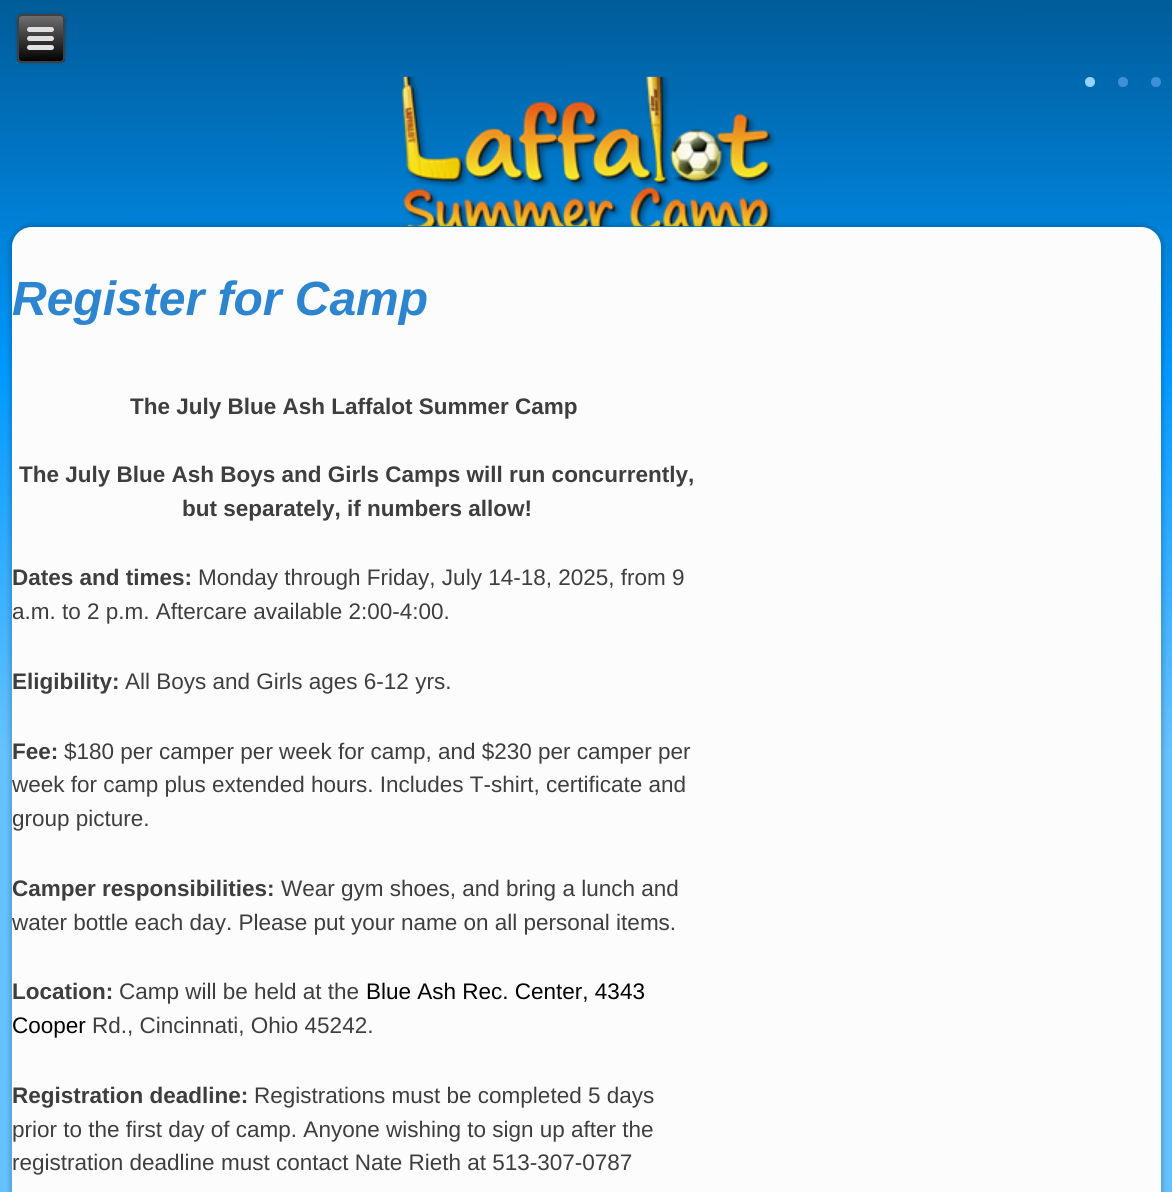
import math
import cairo

surface = cairo.ImageSurface(cairo.Format.RGB24, 1172, 1192)
ctx = cairo.Context(surface)
options = cairo.FontOptions()
options.set_hint_metrics(cairo.HintMetrics.OFF)
options.set_hint_style(cairo.HintStyle.NONE)
ctx.set_font_options(options)
ctx.set_miter_limit(4)


def ink(r, g, b):
    ctx.set_source_rgb(r / 255, g / 255, b / 255)


def write(x, y, s, family, size, color, bold=False, italic=False):
    ctx.select_font_face(family, cairo.FontSlant.ITALIC if italic else cairo.FontSlant.NORMAL, cairo.FontWeight.BOLD if bold else cairo.FontWeight.NORMAL)
    ctx.set_font_size(size)
    ink(*color)
    ctx.move_to(x, y)
    ctx.show_text(s)


def round_path(x, y, w, h, r):
    ctx.new_sub_path()
    for i, (u, v) in enumerate([(x + w - r, y + h - r), (x + r, y + h - r), (x + r, y + r), (x + w - r, y + r)]):
        ctx.arc(u, v, r, i * math.pi / 2, (i + 1) * math.pi / 2)
    ctx.close_path()


def blur_box(x, y, w, h, r, blur, alpha):
    ctx.push_group_with_content(cairo.Content.ALPHA)
    ctx.set_operator(cairo.Operator.SOURCE)
    for i in range(15, -16, -2):
        e = blur * i / 6
        if min(w, h) + 2 * e > 0:
            ctx.set_source_rgba(0, 0, 0, alpha * math.erfc((i - 1) / 8.5) / 2)
            round_path(x - e, y - e, w + 2 * e, h + 2 * e, max(0, min(r + e + blur * .6, min(w, h) / 2 + e)))
            ctx.fill()
    ctx.mask(ctx.pop_group())


def paste(path, x, y, w, h):
    ctx.save()
    ctx.set_source_surface(cairo.ImageSurface.create_from_png(path), x, y)
    ctx.rectangle(x, y, w, h)
    ctx.fill()
    ctx.restore()


s1 = dict(family="Liberation Sans", size=48, color=(44, 133, 206), bold=True, italic=True)
s2 = dict(family="Liberation Sans", size=22.5, color=(61, 62, 61), bold=True)
s3 = dict(family="Liberation Sans", size=22.5, color=(61, 62, 61))
s4 = dict(family="Liberation Sans", size=22.5, color=(0, 0, 0))

ink(255, 255, 255)
ctx.paint()
gradient = cairo.LinearGradient(586, 0, 587, 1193)
gradient.add_color_stop_rgba(0, 0, 0.361, 0.6, 1)
gradient.add_color_stop_rgba(0.31, 0, 0.6, 1, 1)
gradient.add_color_stop_rgba(0.63, 0.4, 0.761, 1, 1)
ctx.set_source(gradient)
ctx.rectangle(0, 0, 1172, 1192)
ctx.fill()
ink(0, 0, 0)
blur_box(17, 14, 48, 49, 5, 2, 0.2)
ctx.save()
round_path(17, 14, 48, 49, 5)
ctx.clip()
gradient = cairo.LinearGradient(40, 15, 41, 62)
gradient.add_color_stop_rgba(0, 0.439, 0.439, 0.439, 1)
gradient.add_color_stop_rgba(1, 0, 0, 0, 1)
ctx.set_source(gradient)
ctx.rectangle(17, 15, 48, 47)
ctx.fill()
ctx.restore()
round_path(18, 15, 46, 47, 4)
ink(64, 64, 64)
ctx.stroke()
ink(224, 224, 224)
round_path(27, 27, 27, 5, 2.5)
ctx.fill()
round_path(27, 36, 27, 5, 2.5)
ctx.fill()
round_path(27, 45, 27, 5, 2.5)
ctx.fill()
paste("pic1.png", 401, 76, 376, 151)
ink(148, 212, 255)
ctx.arc(1090, 82, 5, 0, 2 * math.pi)
ctx.fill()
ink(61, 145, 214)
ctx.arc(1123, 82, 5, 0, 2 * math.pi)
ctx.fill()
ctx.arc(1156, 82, 5, 0, 2 * math.pi)
ctx.fill()
ink(0, 0, 0)
blur_box(9, 224, 1155, 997, 23, 2, 0.15)
ink(252, 252, 252)
round_path(12, 227, 1149, 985, 20)
ctx.fill()
write(12, 315, "Register for Camp", **s1)
write(130, 414, "The July Blue Ash Laffalot Summer Camp", **s2)
write(19, 482, "The July Blue Ash Boys and Girls Camps will run concurrently,", **s2)
write(182, 516, "but separately, if numbers allow!", **s2)
write(12, 585, "Dates and times:", **s2)
write(198, 585, "Monday through Friday, July 14-18, 2025, from 9", **s3)
write(12, 619, "a.m. to 2 p.m. Aftercare available 2:00-4:00.", **s3)
write(12, 689, "Eligibility:", **s2)
write(125, 689, "All Boys and Girls ages 6-12 yrs.", **s3)
write(12, 759, "Fee:", **s2)
write(64, 759, "$180 per camper per week for camp, and $230 per camper per", **s3)
write(12, 792, "week for camp plus extended hours. Includes T-shirt, certificate and", **s3)
write(12, 826, "group picture.", **s3)
write(12, 896, "Camper responsibilities:", **s2)
write(281, 896, "Wear gym shoes, and bring a lunch and", **s3)
write(12, 930, "water bottle each day. Please put your name on all personal items.", **s3)
write(12, 999, "Location:", **s2)
write(119, 999, "Camp will be held at the", **s3)
write(366, 999, "Blue Ash Rec. Center, 4343", **s4)
write(12, 1033, "Cooper", **s4)
write(92, 1033, "Rd., Cincinnati, Ohio 45242.", **s3)
write(12, 1103, "Registration deadline:", **s2)
write(254, 1103, "Registrations must be completed 5 days", **s3)
write(12, 1137, "prior to the first day of camp. Anyone wishing to sign up after the", **s3)
write(12, 1170, "registration deadline must contact Nate Rieth at 513-307-0787", **s3)
surface.write_to_png("screenshot.png")
